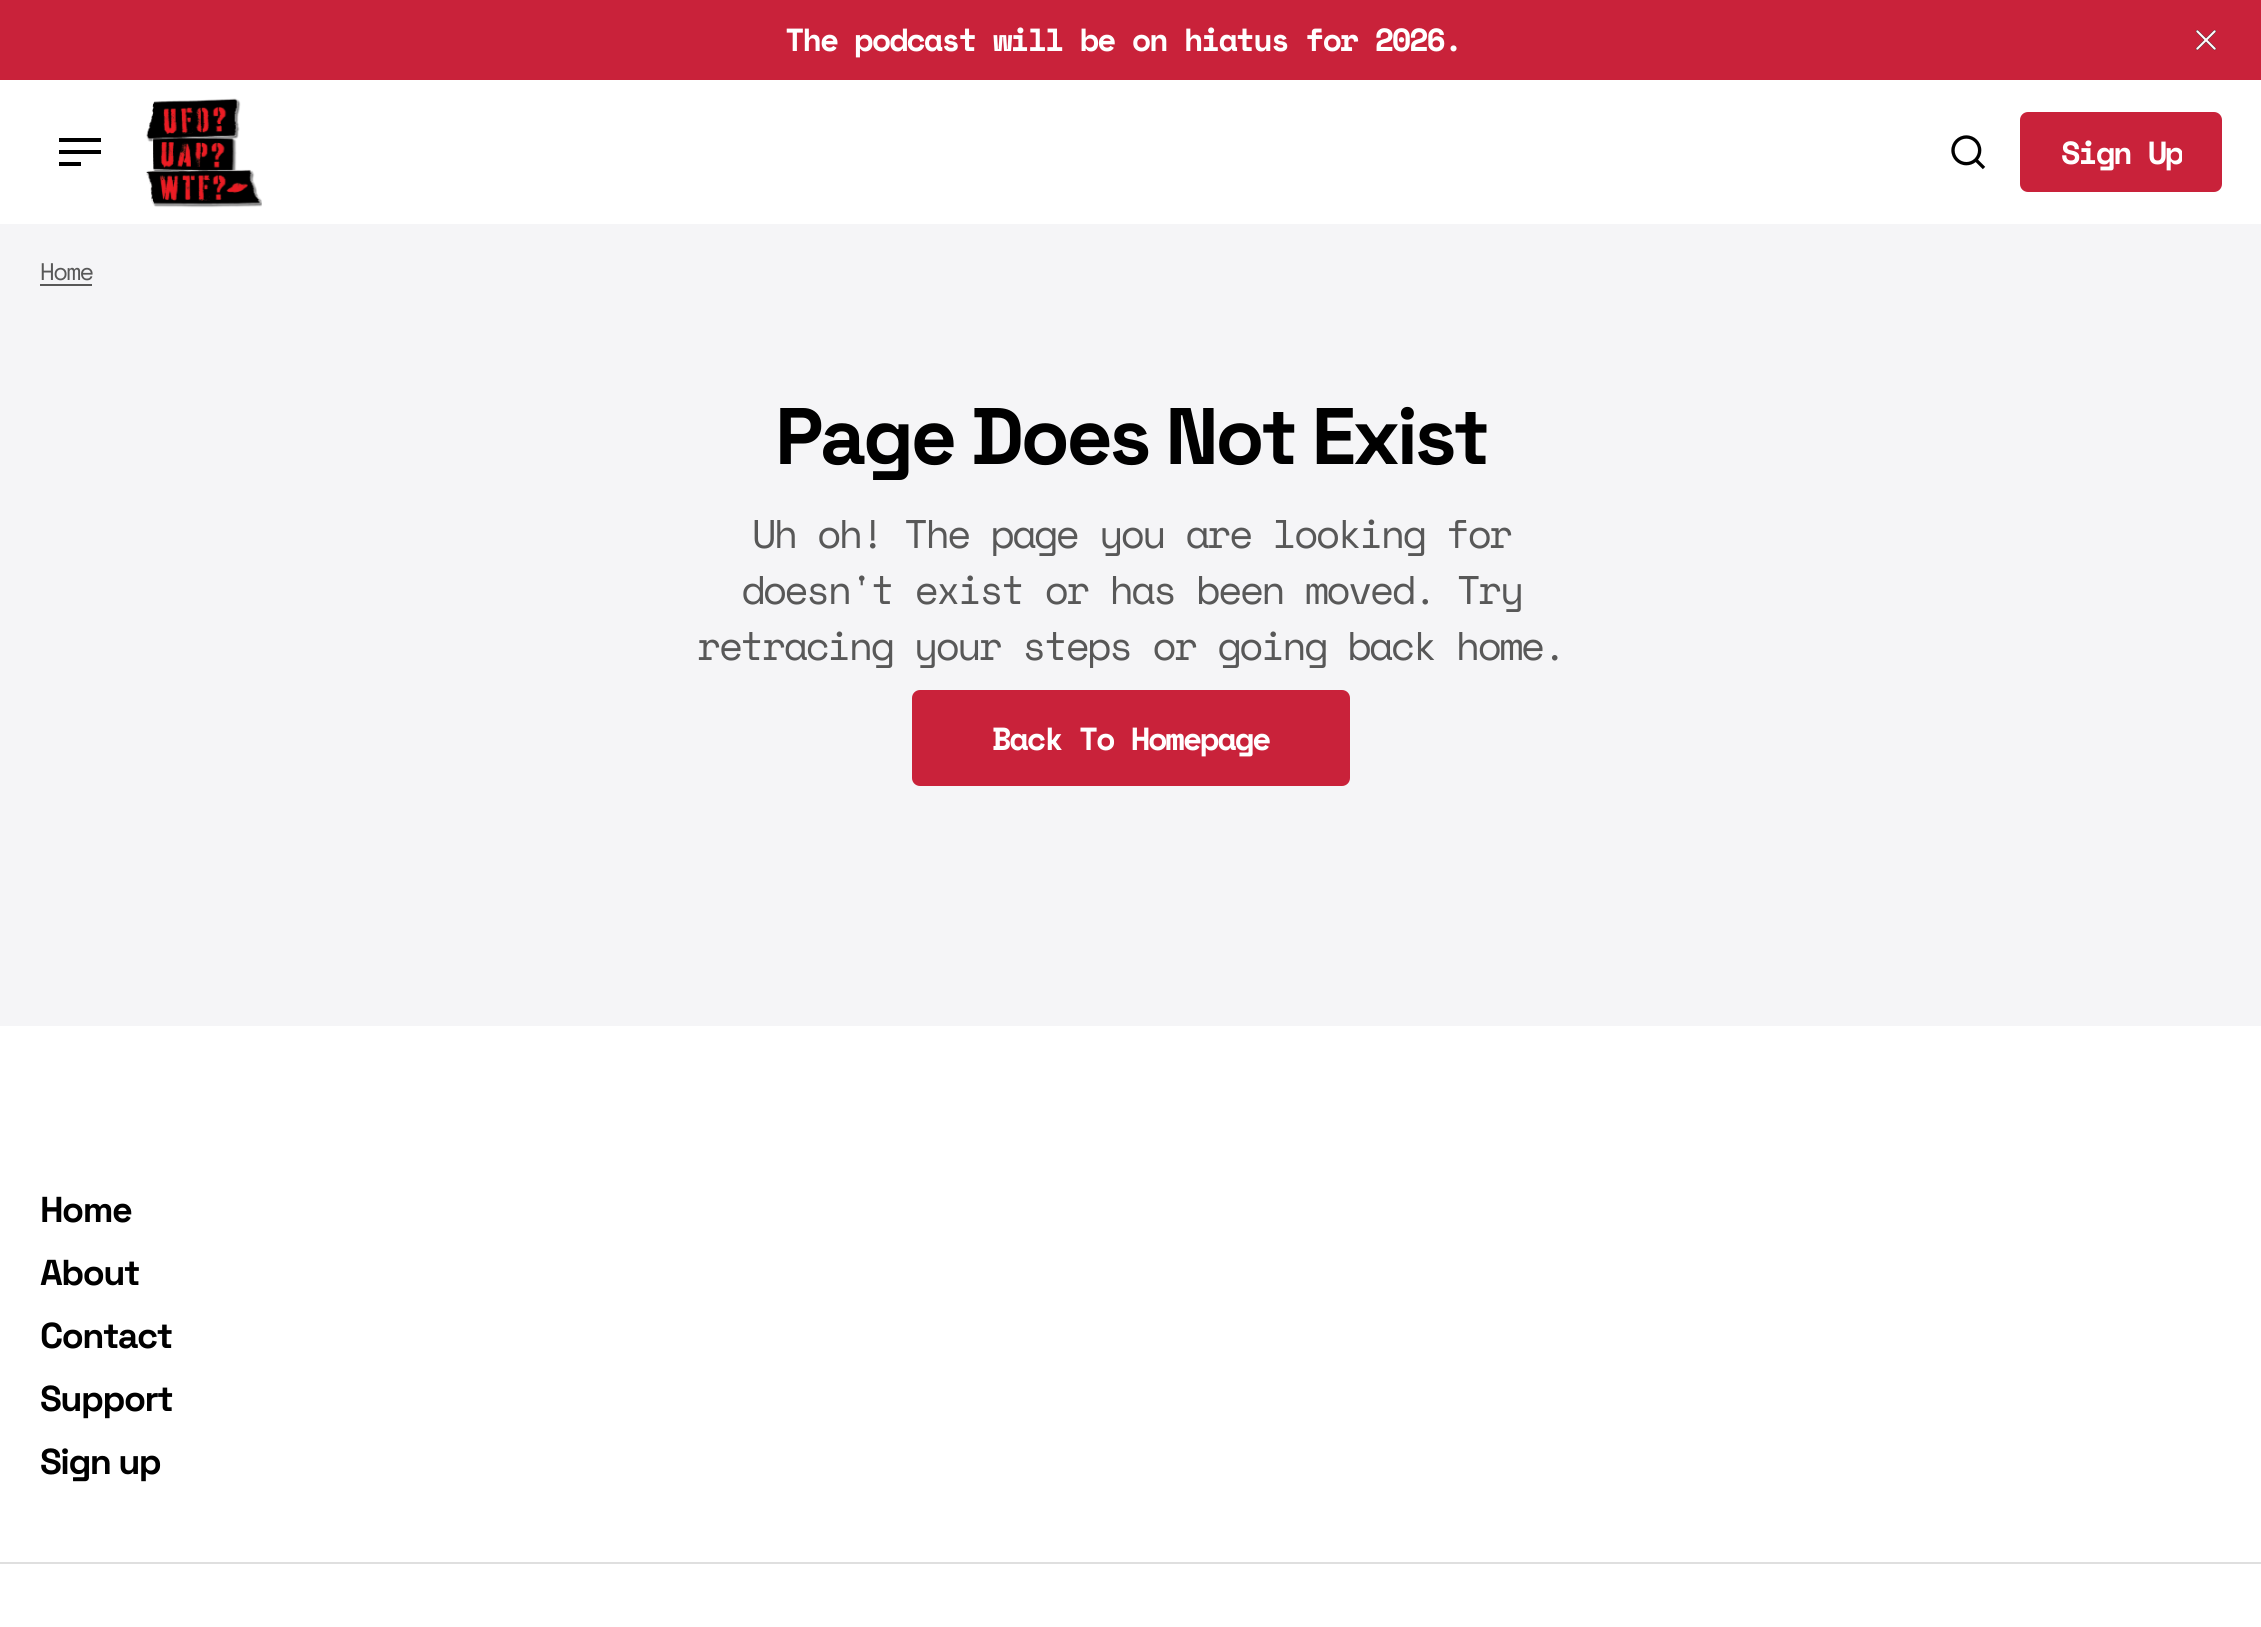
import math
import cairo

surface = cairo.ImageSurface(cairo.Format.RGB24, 2261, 1627)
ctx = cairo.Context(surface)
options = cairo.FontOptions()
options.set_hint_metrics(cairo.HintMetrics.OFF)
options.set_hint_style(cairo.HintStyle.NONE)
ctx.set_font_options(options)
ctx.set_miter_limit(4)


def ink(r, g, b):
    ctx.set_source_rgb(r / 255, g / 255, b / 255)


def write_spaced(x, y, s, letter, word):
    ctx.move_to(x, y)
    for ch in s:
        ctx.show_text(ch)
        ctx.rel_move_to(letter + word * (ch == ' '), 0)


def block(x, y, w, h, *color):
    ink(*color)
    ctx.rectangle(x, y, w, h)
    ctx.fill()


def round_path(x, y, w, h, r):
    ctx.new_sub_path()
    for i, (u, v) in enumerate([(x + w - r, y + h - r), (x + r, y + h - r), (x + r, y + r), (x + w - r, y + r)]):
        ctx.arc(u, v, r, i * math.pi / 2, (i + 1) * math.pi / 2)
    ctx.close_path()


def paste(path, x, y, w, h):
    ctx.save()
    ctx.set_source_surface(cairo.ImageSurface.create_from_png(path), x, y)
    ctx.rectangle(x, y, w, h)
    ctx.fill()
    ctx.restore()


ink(245, 245, 247)
ctx.paint()
block(0, 0, 2261, 80, 201, 34, 58)
ctx.select_font_face("Space Mono", cairo.FontSlant.NORMAL, cairo.FontWeight.BOLD)
ctx.set_font_size(32)
ink(255, 255, 255)
write_spaced(785, 51, "The podcast will be on hiatus for 2026.", -2.25, 0)
paste("pic1.png", 2195, 29, 22, 22)
block(0, 80, 2261, 144, 255, 255, 255)
ink(0, 0, 0)
ctx.new_path()
ctx.move_to(59, 166)
ctx.line_to(59, 162)
ctx.line_to(81, 162)
ctx.line_to(81, 166)
ctx.close_path()
ctx.move_to(59, 154)
ctx.line_to(59, 150)
ctx.line_to(101, 150)
ctx.line_to(101, 154)
ctx.close_path()
ctx.move_to(59, 142)
ctx.line_to(59, 138)
ctx.line_to(101, 138)
ctx.line_to(101, 142)
ctx.close_path()
ctx.fill()
paste("pic2.png", 146, 98, 116, 110)
paste("pic3.png", 1951, 135, 35, 35)
ink(201, 34, 58)
round_path(2020, 112, 202, 80, 8)
ctx.fill()
ctx.save()
ctx.rectangle(2060, 130, 122, 44)
ctx.clip()
ink(255, 255, 255)
write_spaced(2061, 164, "Sign Up", -2.25, 0)
ctx.restore()
ctx.select_font_face("Space Mono")
ctx.set_font_size(24)
ink(88, 88, 88)
write_spaced(40, 280, "Home", -1.5, 0)
block(40, 284, 52, 2, 88, 88, 88)
ctx.select_font_face("Space Grotesk Light")
ctx.set_font_size(80)
ink(0, 0, 0)
write_spaced(775, 464, "Page Does Not Exist", -3.25, 0)
ctx.select_font_face("Space Mono")
ctx.set_font_size(40)
ink(88, 88, 88)
write_spaced(752, 548, "Uh oh! The page you are looking for", -2.8, 0)
write_spaced(741, 604, "doesn't exist or has been moved. Try", -2.8, 0)
write_spaced(697, 660, "retracing your steps or going back home.", -2.8, 0)
ink(201, 34, 58)
round_path(912, 690, 438, 96, 8)
ctx.fill()
ctx.select_font_face("Space Mono", cairo.FontSlant.NORMAL, cairo.FontWeight.BOLD)
ctx.set_font_size(32)
ink(255, 255, 255)
write_spaced(992, 750, "Back To Homepage", -2.25, 0)
block(0, 1026, 2261, 601, 255, 255, 255)
ctx.select_font_face("Space Grotesk Light")
ctx.set_font_size(36)
ink(0, 0, 0)
write_spaced(40, 1222, "Home", -1.5, 0)
write_spaced(40, 1285, "About", -1.5, 0)
write_spaced(40, 1348, "Contact", -1.5, 0)
write_spaced(40, 1411, "Support", -1.5, 0)
write_spaced(40, 1474, "Sign up", -1.5, 0)
block(0, 1562, 2261, 2, 223, 223, 223)
surface.write_to_png("screenshot.png")
